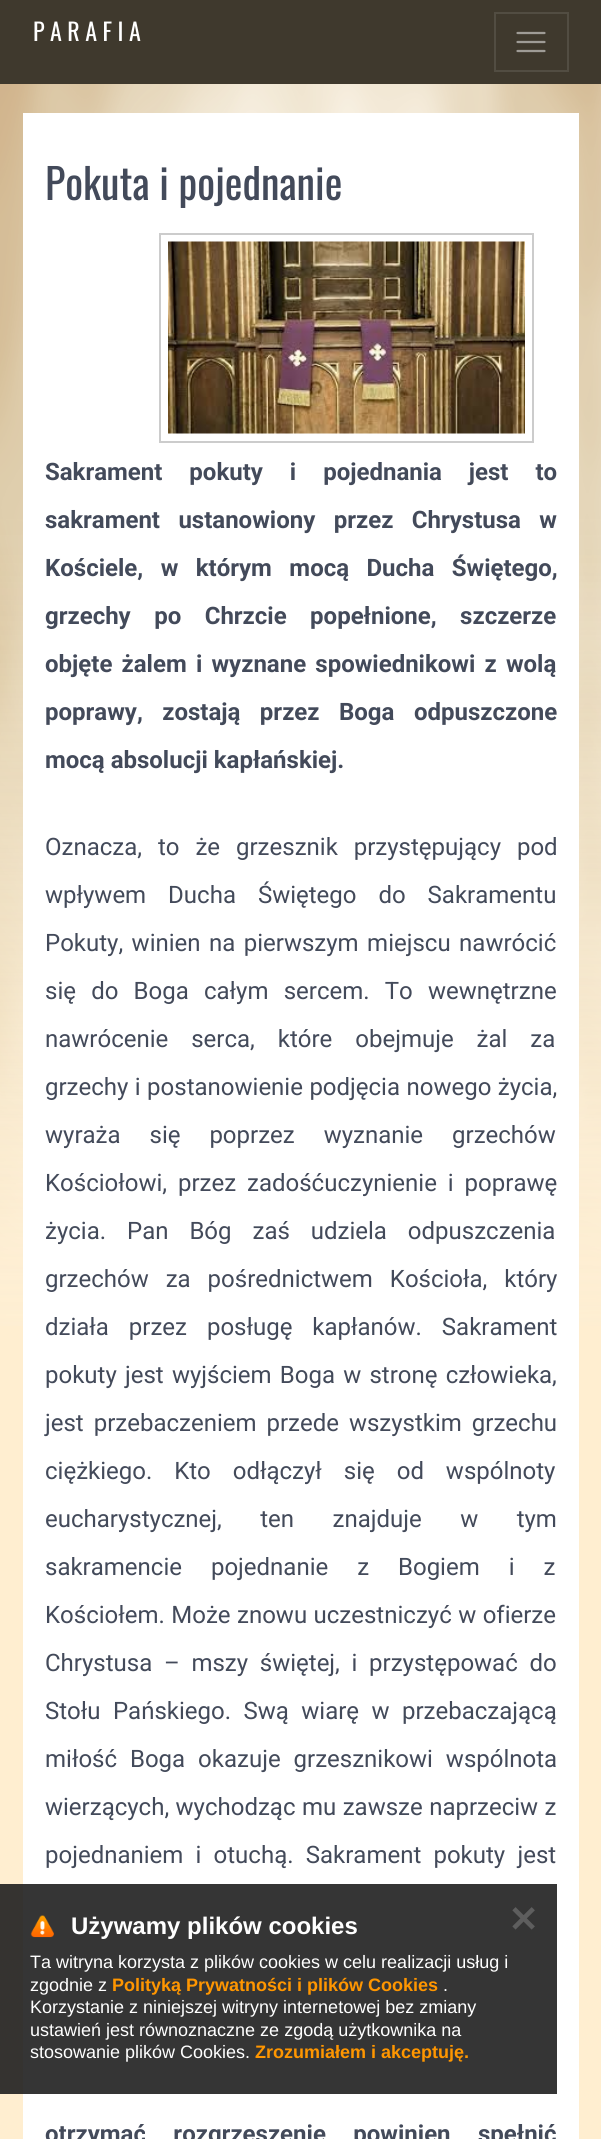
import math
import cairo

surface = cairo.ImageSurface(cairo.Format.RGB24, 601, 2139)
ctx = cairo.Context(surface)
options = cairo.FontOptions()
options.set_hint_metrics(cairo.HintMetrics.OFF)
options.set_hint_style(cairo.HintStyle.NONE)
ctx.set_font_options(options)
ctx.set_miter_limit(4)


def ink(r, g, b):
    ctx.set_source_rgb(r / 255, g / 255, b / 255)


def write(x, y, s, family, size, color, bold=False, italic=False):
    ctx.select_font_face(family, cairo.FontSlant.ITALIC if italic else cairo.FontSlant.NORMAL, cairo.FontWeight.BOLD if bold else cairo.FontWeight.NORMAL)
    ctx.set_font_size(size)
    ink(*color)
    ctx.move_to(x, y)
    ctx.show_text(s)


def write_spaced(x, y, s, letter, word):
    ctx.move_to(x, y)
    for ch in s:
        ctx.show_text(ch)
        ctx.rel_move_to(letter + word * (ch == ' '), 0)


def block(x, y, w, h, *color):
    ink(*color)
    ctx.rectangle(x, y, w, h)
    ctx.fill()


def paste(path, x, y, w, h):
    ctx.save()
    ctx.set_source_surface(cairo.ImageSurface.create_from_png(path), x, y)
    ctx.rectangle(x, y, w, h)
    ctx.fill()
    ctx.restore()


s1 = dict(family="Oswald", size=24, color=(255, 255, 255))
s2 = dict(family="Oswald", size=42, color=(67, 74, 90))
s3 = dict(family="Roboto", size=24, color=(67, 74, 90), bold=True)
s4 = dict(family="Liberation Sans", size=24, color=(255, 255, 255), bold=True)
s5 = dict(family="DejaVu Sans", size=36, color=(94, 94, 94), bold=True)
s6 = dict(family="Liberation Sans", size=18, color=(255, 255, 255))
s7 = dict(family="Liberation Sans", size=18, color=(255, 150, 0), bold=True)

ink(255, 238, 208)
ctx.paint()
block(0, 0, 601, 84, 63, 57, 45)
write(33, 41, "P A R A F I A", **s1)
ctx.new_path()
ctx.move_to(517.5, 33)
ctx.line_to(544.5, 33)
ctx.move_to(517.5, 42)
ctx.line_to(544.5, 42)
ctx.move_to(517.5, 51)
ctx.line_to(544.5, 51)
ink(159, 156, 150)
ctx.set_line_width(2.2)
ctx.set_line_cap(cairo.LineCap.ROUND)
ctx.stroke()
ctx.rectangle(495, 13, 73, 58)
ink(82, 77, 66)
ctx.set_line_width(2)
ctx.set_line_cap(cairo.LineCap.BUTT)
ctx.stroke()
paste("pic2.png", 0, 84, 601, 1242)
block(23, 113, 556, 2026, 255, 255, 255)
write(45, 200, "Pokuta i pojednanie", **s2)
ctx.rectangle(160, 234, 373, 208)
ink(204, 204, 204)
ctx.stroke()
paste("pic1.png", 168, 241, 357, 193)
ctx.select_font_face("Roboto", cairo.FontSlant.NORMAL, cairo.FontWeight.BOLD)
ctx.set_font_size(24)
ink(67, 74, 90)
write_spaced(45, 480, "Sakrament pokuty i pojednania jest to", 0, 21)
write_spaced(45, 528, "sakrament ustanowiony przez Chrystusa w", 0, 12.5)
write_spaced(45, 576, "Kościele, w którym mocą Ducha Świętego,", 0, 11.5)
write_spaced(45, 624, "grzechy po Chrzcie popełnione, szczerze", 0, 17.5)
write_spaced(45, 672, "objęte żalem i wyznane spowiednikowi z wolą", 0, 3.25)
write_spaced(45, 720, "poprawy, zostają przez Boga odpuszczone", 0, 13.5)
write(45, 768, "mocą absolucji kapłańskiej.", **s3)
ctx.select_font_face("Roboto")
write_spaced(45, 855, "Oznacza, to że grzesznik przystępujący pod", 0, 10)
write_spaced(45, 903, "wpływem Ducha Świętego do Sakramentu", 0, 16)
write_spaced(45, 951, "Pokuty, winien na pierwszym miejscu nawrócić", 0, 2.5)
write_spaced(45, 999, "się do Boga całym sercem. To wewnętrzne", 0, 9.25)
write_spaced(45, 1047, "nawrócenie serca, które obejmuje żal za", 0, 17)
write_spaced(45, 1095, "grzechy i postanowienie podjęcia nowego życia,", 0, 0.5)
write_spaced(45, 1143, "wyraża się poprzez wyznanie grzechów", 0, 23)
write_spaced(45, 1191, "Kościołowi, przez zadośćuczynienie i poprawę", 0, 5)
write_spaced(45, 1239, "życia. Pan Bóg zaś udziela odpuszczenia", 0, 15)
write_spaced(45, 1287, "grzechów za pośrednictwem Kościoła, który", 0, 11)
write_spaced(45, 1335, "działa przez posługę kapłanów. Sakrament", 0, 14)
write_spaced(45, 1383, "pokuty jest wyjściem Boga w stronę człowieka,", 0, 2.25)
write_spaced(45, 1431, "jest przebaczeniem przede wszystkim grzechu", 0, 4)
write_spaced(45, 1479, "ciężkiego. Kto odłączył się od wspólnoty", 0, 16)
write_spaced(45, 1527, "eucharystycznej, ten znajduje w tym", 0, 32.5)
write_spaced(45, 1575, "sakramencie pojednanie z Bogiem i z", 0, 23)
write_spaced(45, 1623, "Kościołem. Może znowu uczestniczyć w ofierze", 0, 0.5)
write_spaced(45, 1671, "Chrystusa – mszy świętej, i przystępować do", 0, 5.75)
write_spaced(45, 1719, "Stołu Pańskiego. Swą wiarę w przebaczającą", 0, 6.5)
write_spaced(45, 1767, "miłość Boga okazuje grzesznikowi wspólnota", 0, 7)
write_spaced(45, 1815, "wierzących, wychodząc mu zawsze naprzeciw z", 0, 0.5)
write_spaced(45, 1863, "pojednaniem i otuchą. Sakrament pokuty jest", 0, 6.25)
ctx.select_font_face("Roboto", cairo.FontSlant.NORMAL, cairo.FontWeight.BOLD)
write_spaced(45, 2142, "otrzymać rozgrzeszenie powinien spełnić", 0, 21.5)
ctx.set_source_rgba(0.122, 0.122, 0.122, 0.9)
ctx.rectangle(0, 1884, 557, 210)
ctx.fill()
paste("pic3.png", 30, 1915, 24, 23)
write(71, 1934, "Używamy plików cookies", **s4)
write(508, 1932, "✕", **s5)
write(30, 1968, "Ta witryna korzysta z plików cookies w celu realizacji usług i", **s6)
write(30, 1991, "zgodnie z", **s6)
write(112, 1991, "Polityką Prywatności i plików Cookies", **s7)
write(443, 1991, ".", **s6)
write(30, 2013, "Korzystanie z niniejszej witryny internetowej bez zmiany", **s6)
write(30, 2036, "ustawień jest równoznaczne ze zgodą użytkownika na", **s6)
write(30, 2058, "stosowanie plików Cookies.", **s6)
write(255, 2058, "Zrozumiałem i akceptuję.", **s7)
surface.write_to_png("screenshot.png")
